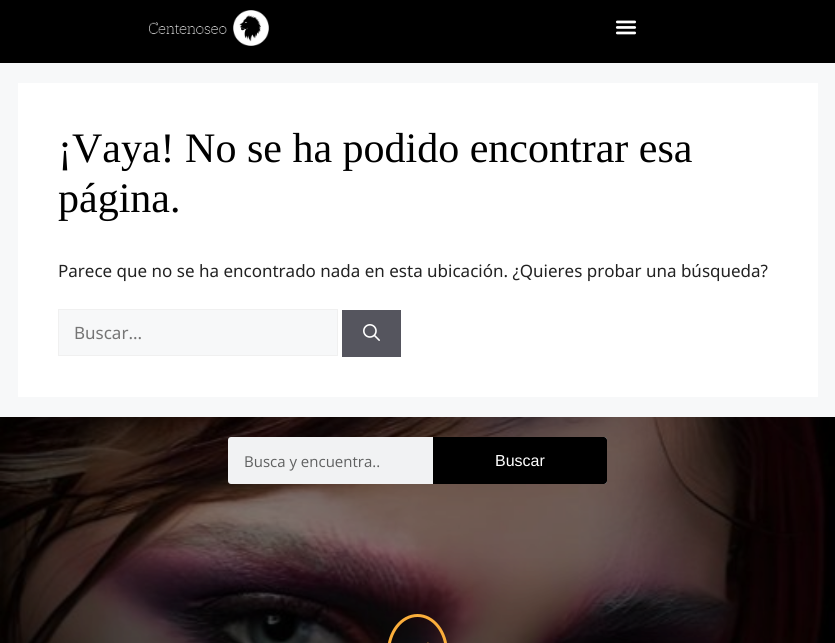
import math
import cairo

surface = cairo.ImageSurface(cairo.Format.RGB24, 835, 643)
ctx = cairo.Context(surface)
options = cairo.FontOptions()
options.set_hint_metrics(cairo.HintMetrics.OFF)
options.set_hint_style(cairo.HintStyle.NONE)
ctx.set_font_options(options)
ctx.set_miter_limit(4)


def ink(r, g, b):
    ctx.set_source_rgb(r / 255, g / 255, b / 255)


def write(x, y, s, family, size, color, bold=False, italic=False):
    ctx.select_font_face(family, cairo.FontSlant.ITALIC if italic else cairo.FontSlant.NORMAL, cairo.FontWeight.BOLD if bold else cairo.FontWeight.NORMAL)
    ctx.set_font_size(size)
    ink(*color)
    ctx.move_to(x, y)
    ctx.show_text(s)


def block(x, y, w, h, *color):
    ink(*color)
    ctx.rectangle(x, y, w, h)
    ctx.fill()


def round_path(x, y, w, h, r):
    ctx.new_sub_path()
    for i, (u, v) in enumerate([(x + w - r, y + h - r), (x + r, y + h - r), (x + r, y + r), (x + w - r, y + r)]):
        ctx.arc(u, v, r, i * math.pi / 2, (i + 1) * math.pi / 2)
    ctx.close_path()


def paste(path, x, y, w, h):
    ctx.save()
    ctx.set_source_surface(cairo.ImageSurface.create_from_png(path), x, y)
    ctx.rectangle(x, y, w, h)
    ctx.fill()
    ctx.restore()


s1 = dict(family="Liberation Serif", size=42, color=(0, 0, 0))
s2 = dict(family="Noto Sans", size=17, color=(34, 34, 34))
s3 = dict(family="Noto Sans", size=17, color=(117, 117, 117))
s4 = dict(family="Open Sans", size=15, color=(96, 97, 97))
s5 = dict(family="Liberation Sans", size=16, color=(255, 255, 255))

ink(247, 248, 249)
ctx.paint()
block(0, 0, 835, 63, 0, 0, 0)
paste("pic1.png", 149, 10, 120, 36)
paste("pic2.png", 615, 20, 22, 15)
block(18, 83, 800, 314, 255, 255, 255)
write(58, 162, "¡Vaya! No se ha podido encontrar esa", **s1)
write(58, 212, "página.", **s1)
write(58, 277, "Parece que no se ha encontrado nada en esta ubicación. ¿Quieres probar una búsqueda?", **s2)
ink(247, 248, 249)
ctx.rectangle(58.5, 309.5, 279, 46)
ctx.fill_preserve()
ink(240, 240, 240)
ctx.set_line_width(1)
ctx.stroke()
write(74, 339, "Buscar...", **s3)
block(342, 310, 59, 47, 85, 85, 94)
paste("pic3.png", 363, 324, 17, 17)
paste("pic4.png", 0, 417, 835, 226)
ink(241, 242, 243)
round_path(228, 437, 379, 47, 3)
ctx.fill()
write(244, 467, "Busca y encuentra..", **s4)
ink(0, 0, 0)
ctx.new_path()
ctx.move_to(433, 437)
ctx.line_to(604, 437)
ctx.curve_to(605.5, 437, 607, 438.5, 607, 440)
ctx.line_to(607, 481)
ctx.curve_to(607, 482.5, 605.5, 484, 604, 484)
ctx.line_to(433, 484)
ctx.close_path()
ctx.fill()
write(495, 466, "Buscar", **s5)
ctx.new_path()
ctx.move_to(417.5, 615.5)
ctx.curve_to(433.5, 615.5, 446.5, 632, 446.5, 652.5)
ctx.curve_to(446.5, 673, 433.5, 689.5, 417.5, 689.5)
ctx.curve_to(401.5, 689.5, 388.5, 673, 388.5, 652.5)
ctx.curve_to(388.5, 632, 401.5, 615.5, 417.5, 615.5)
ctx.close_path()
ink(251, 174, 59)
ctx.set_line_width(3)
ctx.stroke()
paste("pic5.png", 427, 642, 2, 1)
surface.write_to_png("screenshot.png")
